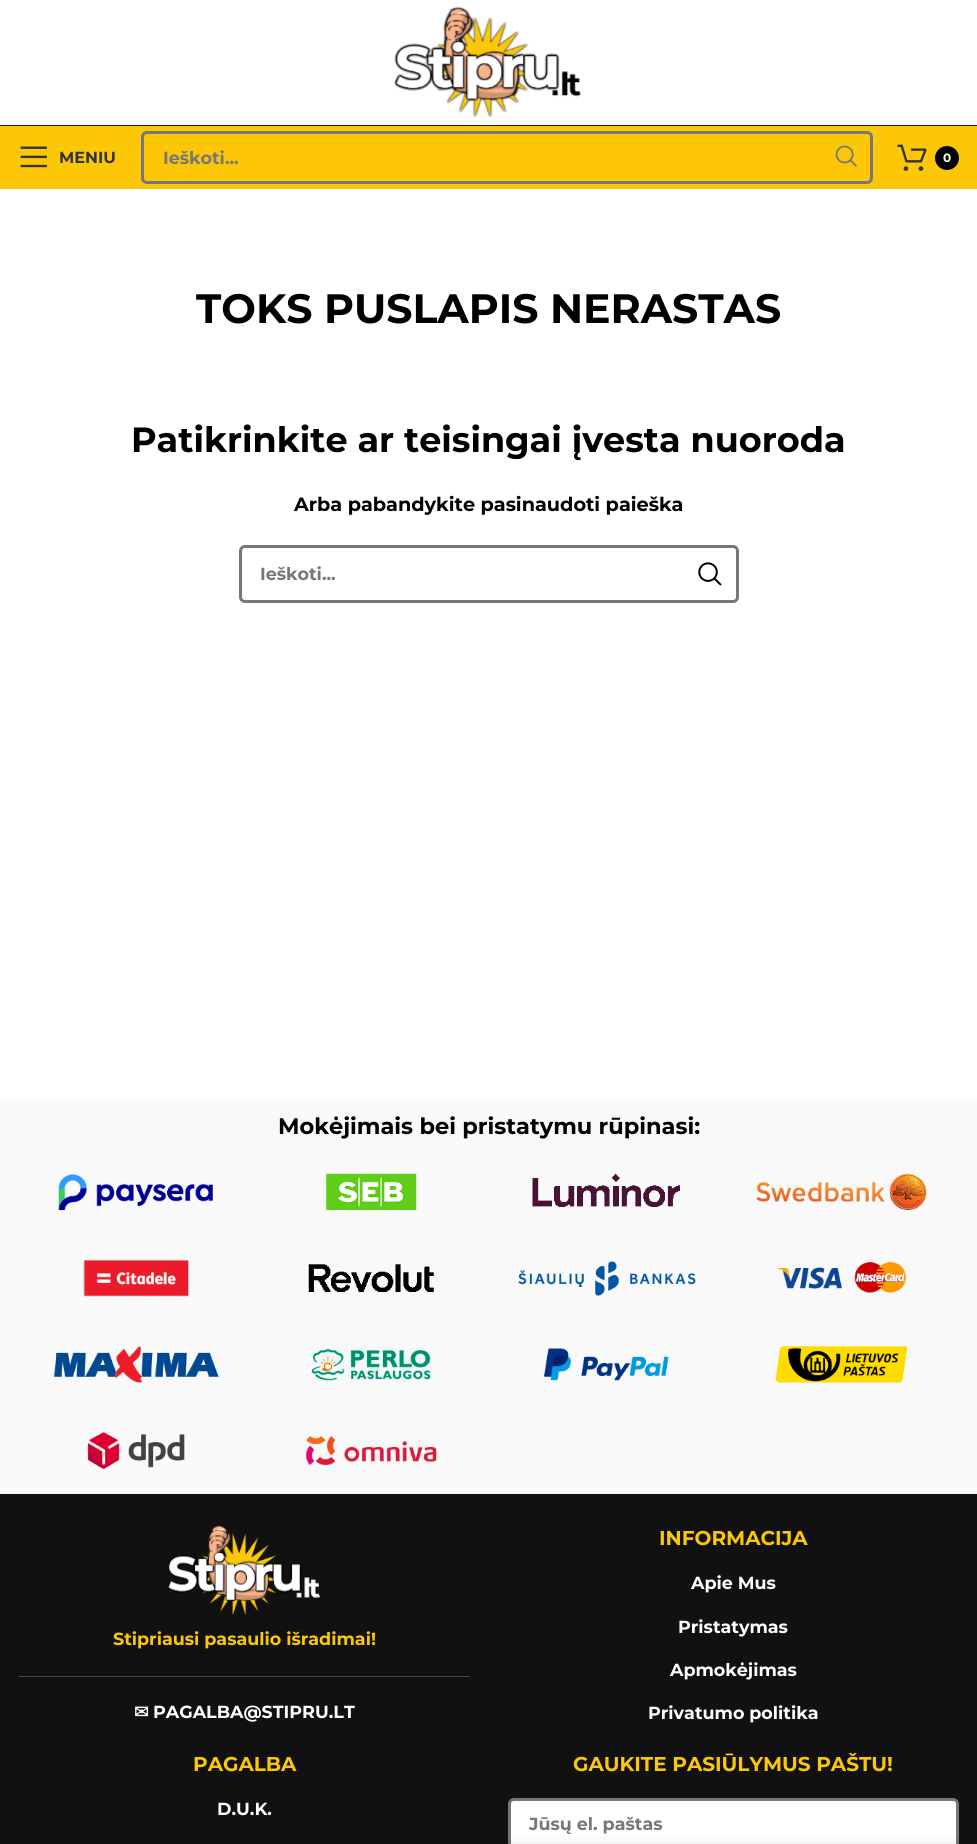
import math
import cairo

surface = cairo.ImageSurface(cairo.Format.RGB24, 977, 1844)
ctx = cairo.Context(surface)
options = cairo.FontOptions()
options.set_hint_metrics(cairo.HintMetrics.OFF)
options.set_hint_style(cairo.HintStyle.NONE)
ctx.set_font_options(options)
ctx.set_miter_limit(4)


def ink(r, g, b):
    ctx.set_source_rgb(r / 255, g / 255, b / 255)


def write(x, y, s, family, size, color, bold=False, italic=False):
    ctx.select_font_face(family, cairo.FontSlant.ITALIC if italic else cairo.FontSlant.NORMAL, cairo.FontWeight.BOLD if bold else cairo.FontWeight.NORMAL)
    ctx.set_font_size(size)
    ink(*color)
    ctx.move_to(x, y)
    ctx.show_text(s)


def block(x, y, w, h, *color):
    ink(*color)
    ctx.rectangle(x, y, w, h)
    ctx.fill()


def round_path(x, y, w, h, r):
    ctx.new_sub_path()
    for i, (u, v) in enumerate([(x + w - r, y + h - r), (x + r, y + h - r), (x + r, y + r), (x + w - r, y + r)]):
        ctx.arc(u, v, r, i * math.pi / 2, (i + 1) * math.pi / 2)
    ctx.close_path()


def blur_box(x, y, w, h, r, blur, alpha):
    ctx.push_group_with_content(cairo.Content.ALPHA)
    ctx.set_operator(cairo.Operator.SOURCE)
    for i in range(15, -16, -2):
        e = blur * i / 6
        if min(w, h) + 2 * e > 0:
            ctx.set_source_rgba(0, 0, 0, alpha * math.erfc((i - 1) / 8.5) / 2)
            round_path(x - e, y - e, w + 2 * e, h + 2 * e, max(0, min(r + e + blur * .6, min(w, h) / 2 + e)))
            ctx.fill()
    ctx.mask(ctx.pop_group())


def paste(path, x, y, w, h):
    ctx.save()
    ctx.set_source_surface(cairo.ImageSurface.create_from_png(path), x, y)
    ctx.rectangle(x, y, w, h)
    ctx.fill()
    ctx.restore()


s1 = dict(family="Montserrat", size=16, color=(51, 51, 51), bold=True)
s2 = dict(family="Montserrat", size=17.5, color=(119, 119, 119), bold=True)
s3 = dict(family="Montserrat", size=12, color=(255, 255, 255), bold=True)
s4 = dict(family="Montserrat", size=41, color=(0, 0, 0), bold=True)
s5 = dict(family="Montserrat", size=35, color=(0, 0, 0), bold=True)
s6 = dict(family="Montserrat", size=19.25, color=(0, 0, 0), bold=True)
s7 = dict(family="Montserrat", size=22.5, color=(0, 0, 0), bold=True)
s8 = dict(family="Montserrat", size=17.5, color=(251, 199, 7), bold=True)
s9 = dict(family="DejaVu Sans", size=17.5, color=(255, 255, 255), bold=True)
s10 = dict(family="Montserrat", size=17.5, color=(255, 255, 255), bold=True)
s11 = dict(family="Montserrat", size=20, color=(251, 199, 7), bold=True)

ink(255, 255, 255)
ctx.paint()
block(0, 125, 977, 1, 34, 34, 34)
paste("pic1.png", 394, 7, 187, 111)
block(0, 126, 977, 63, 251, 199, 7)
paste("pic2.png", 20, 146, 27, 22)
write(59, 163, "MENIU", **s1)
round_path(142.5, 132.5, 729, 50, 4.5)
ink(119, 119, 119)
ctx.set_line_width(3)
ctx.stroke()
write(163, 164, "Ieškoti...", **s2)
paste("pic3.png", 835, 145, 22, 22)
paste("pic4.png", 897, 144, 30, 27)
ink(0, 0, 0)
ctx.arc(947, 158, 12, 0, 2 * math.pi)
ctx.fill()
write(943, 162, "0", **s3)
write(196, 323, "TOKS PUSLAPIS NERASTAS", **s4)
write(131, 452, "Patikrinkite ar teisingai įvesta nuoroda", **s5)
write(294, 511, "Arba pabandykite pasinaudoti paieška", **s6)
round_path(240.5, 546.5, 497, 55, 4.5)
ink(119, 119, 119)
ctx.stroke()
write(260, 580, "Ieškoti...", **s2)
paste("pic5.png", 698, 562, 24, 24)
block(0, 1099, 977, 395, 249, 249, 249)
write(278, 1134, "Mokėjimais bei pristatymu rūpinasi:", **s7)
paste("pic6.png", 58, 1174, 155, 36)
paste("pic7.png", 326, 1173, 91, 37)
paste("pic8.png", 532, 1173, 148, 34)
paste("pic9.png", 756, 1173, 171, 37)
paste("pic10.png", 83, 1260, 106, 37)
paste("pic11.png", 308, 1264, 126, 28)
paste("pic12.png", 518, 1261, 178, 35)
paste("pic13.png", 777, 1261, 130, 32)
paste("pic14.png", 53, 1346, 166, 37)
paste("pic15.png", 311, 1348, 120, 33)
paste("pic16.png", 544, 1348, 125, 33)
paste("pic17.png", 775, 1346, 132, 37)
paste("pic18.png", 87, 1432, 98, 37)
paste("pic19.png", 306, 1436, 131, 29)
block(0, 1494, 977, 350, 17, 17, 17)
paste("pic20.png", 168, 1525, 153, 90)
write(113, 1645, "Stipriausi pasaulio išradimai!", **s8)
block(19, 1676, 451, 1, 73, 73, 73)
write(134, 1718, "✉", **s9)
write(153, 1718, "PAGALBA@STIPRU.LT", **s10)
write(659, 1545, "INFORMACIJA", **s11)
write(691, 1589, "Apie Mus", **s10)
write(678, 1633, "Pristatymas", **s10)
write(670, 1676, "Apmokėjimas", **s10)
write(648, 1719, "Privatumo politika", **s10)
write(193, 1771, "PAGALBA", **s11)
write(217, 1815, "D.U.K.", **s10)
write(573, 1771, "GAUKITE PASIŪLYMUS PAŠTU!", **s11)
ink(255, 255, 255)
round_path(509.5, 1799.5, 448, 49, 4.5)
ctx.fill_preserve()
ink(119, 119, 119)
ctx.stroke()
write(529, 1830, "Jūsų el. paštas", **s2)
ink(0, 0, 0)
blur_box(0, 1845, 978, 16, 0, 5.5, 0.14)
surface.write_to_png("screenshot.png")
